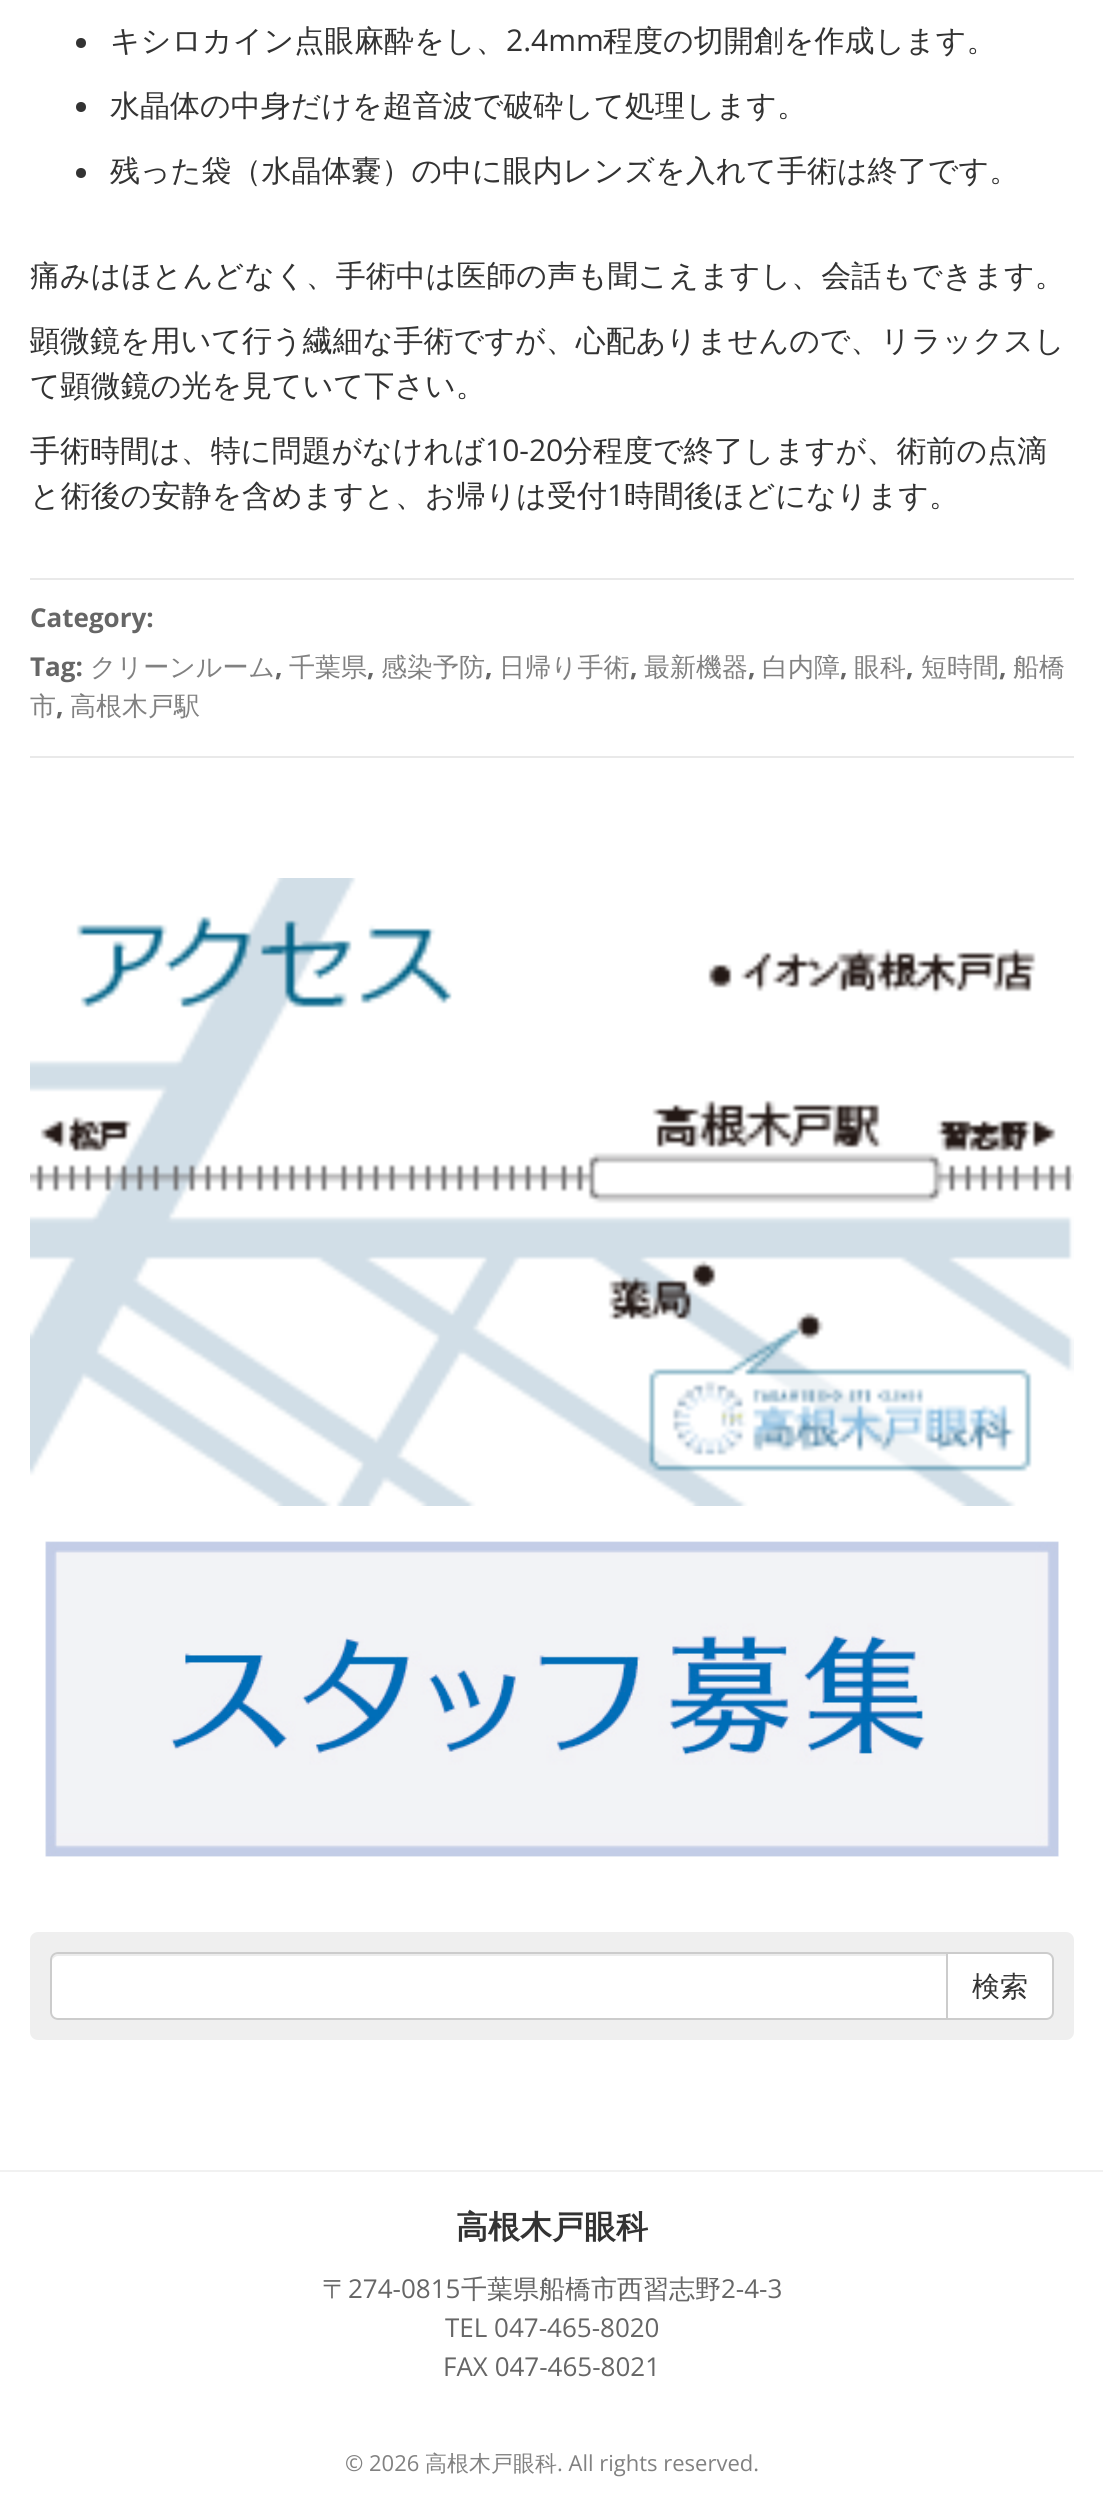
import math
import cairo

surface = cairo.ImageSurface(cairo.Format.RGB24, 1103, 2520)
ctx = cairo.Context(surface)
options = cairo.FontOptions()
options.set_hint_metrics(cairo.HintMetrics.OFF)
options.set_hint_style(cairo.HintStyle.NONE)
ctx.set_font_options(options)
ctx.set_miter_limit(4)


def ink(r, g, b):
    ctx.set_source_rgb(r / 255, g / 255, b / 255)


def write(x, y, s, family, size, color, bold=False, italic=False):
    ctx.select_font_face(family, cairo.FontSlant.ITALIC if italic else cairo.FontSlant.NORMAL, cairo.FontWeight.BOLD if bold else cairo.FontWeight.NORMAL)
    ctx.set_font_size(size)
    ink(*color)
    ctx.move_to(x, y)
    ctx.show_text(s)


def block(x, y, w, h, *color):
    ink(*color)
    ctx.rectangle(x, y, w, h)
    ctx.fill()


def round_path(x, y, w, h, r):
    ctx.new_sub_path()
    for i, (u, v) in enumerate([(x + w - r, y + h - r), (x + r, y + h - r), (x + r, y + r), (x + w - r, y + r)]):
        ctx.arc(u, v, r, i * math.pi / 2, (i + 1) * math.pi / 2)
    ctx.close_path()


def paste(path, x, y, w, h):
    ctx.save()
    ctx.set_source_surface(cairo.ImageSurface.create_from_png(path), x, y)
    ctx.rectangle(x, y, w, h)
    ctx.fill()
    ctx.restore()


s1 = dict(family="WenQuanYi Zen Hei Medium", size=30, color=(51, 51, 51))
s2 = dict(family="Open Sans", size=30, color=(51, 51, 51))
s3 = dict(family="Open Sans", size=26, color=(102, 102, 102), bold=True)
s4 = dict(family="WenQuanYi Zen Hei Medium", size=26, color=(129, 129, 129))
s5 = dict(family="WenQuanYi Zen Hei Medium", size=28, color=(51, 51, 51))
s6 = dict(family="WenQuanYi Zen Hei", size=32, color=(51, 51, 51), bold=True)
s7 = dict(family="WenQuanYi Zen Hei Medium", size=26, color=(102, 102, 102))
s8 = dict(family="Open Sans", size=26, color=(102, 102, 102))
s9 = dict(family="Open Sans", size=22, color=(129, 129, 129))
s10 = dict(family="WenQuanYi Zen Hei Medium", size=22, color=(129, 129, 129))

ink(255, 255, 255)
ctx.paint()
ink(51, 51, 51)
ctx.arc(81, 43, 5, 0, 2 * math.pi)
ctx.fill()
write(110, 51, "キシロカイン点眼麻酔をし、", **s1)
write(506, 51, "2.4mm", **s2)
write(603, 51, "程度の切開創を作成します。", **s1)
ctx.new_path()
ctx.arc(81, 107, 5, 0, 2 * math.pi)
ctx.fill()
write(110, 116, "水晶体の中身だけを超音波で破砕して処理します。", **s1)
ctx.new_path()
ctx.arc(81, 173, 5, 0, 2 * math.pi)
ctx.fill()
write(110, 181, "残った袋（水晶体嚢）の中に眼内レンズを入れて手術は終了です。", **s1)
write(30, 286, "痛みはほとんどなく、手術中は医師の声も聞こえますし、会話もできます。", **s1)
write(30, 351, "顕微鏡を用いて行う繊細な手術ですが、心配ありませんので、リラックスし", **s1)
write(30, 396, "て顕微鏡の光を見ていて下さい。", **s1)
write(30, 461, "手術時間は、特に問題がなければ", **s1)
write(485, 461, "10-20", **s2)
write(563, 461, "分程度で終了しますが、術前の点滴", **s1)
write(30, 506, "と術後の安静を含めますと、お帰りは受付", **s1)
write(607, 506, "1", **s2)
write(624, 506, "時間後ほどになります。", **s1)
block(30, 578, 1044, 2, 233, 233, 233)
block(30, 756, 1044, 2, 233, 233, 233)
write(30, 627, "Category:", **s3)
write(30, 676, "Tag:", **s3)
write(90, 676, "クリーンルーム", **s4)
write(275, 676, ",", **s3)
write(289, 676, "千葉県", **s4)
write(367, 676, ",", **s3)
write(381, 676, "感染予防", **s4)
write(485, 676, ",", **s3)
write(499, 676, "日帰り手術", **s4)
write(630, 676, ",", **s3)
write(644, 676, "最新機器", **s4)
write(748, 676, ",", **s3)
write(762, 676, "白内障", **s4)
write(840, 676, ",", **s3)
write(854, 676, "眼科", **s4)
write(906, 676, ",", **s3)
write(921, 676, "短時間", **s4)
write(999, 676, ",", **s3)
write(1013, 676, "船橋", **s4)
write(30, 715, "市", **s4)
write(56, 715, ",", **s3)
write(70, 715, "高根木戸駅", **s4)
paste("pic1.png", 30, 878, 1044, 628)
paste("pic2.png", 45, 1541, 1014, 316)
ink(239, 239, 239)
round_path(30, 1932, 1044, 108, 8)
ctx.fill()
ink(255, 255, 255)
ctx.new_path()
ctx.move_to(947, 1953)
ctx.line_to(1046, 1953)
ctx.curve_to(1050, 1953, 1053, 1956, 1053, 1960)
ctx.line_to(1053, 2012)
ctx.curve_to(1053, 2016, 1050, 2019, 1046, 2019)
ctx.line_to(947, 2019)
ctx.close_path()
ctx.fill_preserve()
ink(204, 204, 204)
ctx.stroke()
ink(255, 255, 255)
ctx.new_path()
ctx.move_to(58, 1952)
ctx.line_to(948, 1952)
ctx.line_to(948, 2020)
ctx.line_to(58, 2020)
ctx.curve_to(53.5, 2020, 50, 2016.5, 50, 2012)
ctx.line_to(50, 1960)
ctx.curve_to(50, 1955.5, 53.5, 1952, 58, 1952)
ctx.close_path()
ctx.fill()
ink(236, 236, 236)
ctx.new_path()
ctx.move_to(58, 1956)
ctx.line_to(946, 1956)
ctx.line_to(946, 1954)
ctx.line_to(58, 1954)
ctx.curve_to(53, 1954, 52, 1958, 52, 1962)
ctx.curve_to(52, 1959, 55, 1956, 58, 1956)
ctx.close_path()
ctx.fill()
ctx.new_path()
ctx.move_to(58, 1953)
ctx.line_to(947, 1953)
ctx.line_to(947, 2019)
ctx.line_to(58, 2019)
ctx.curve_to(54, 2019, 51, 2016, 51, 2012)
ctx.line_to(51, 1960)
ctx.curve_to(51, 1956, 54, 1953, 58, 1953)
ctx.close_path()
ink(204, 204, 204)
ctx.stroke()
write(972, 1996, "検索", **s5)
block(0, 2170, 1103, 2, 241, 241, 241)
write(456, 2238, "高根木戸眼科", **s6)
write(322, 2298, "〒", **s7)
write(348, 2298, "274-0815", **s8)
write(461, 2298, "千葉県船橋市西習志野", **s7)
write(721, 2298, "2-4-3", **s8)
write(445, 2337, "TEL 047-465-8020", **s8)
write(443, 2376, "FAX 047-465-8021", **s8)
write(345, 2471, "© 2026", **s9)
write(425, 2471, "高根木戸眼科", **s10)
write(557, 2471, ". All rights reserved.", **s9)
surface.write_to_png("screenshot.png")
